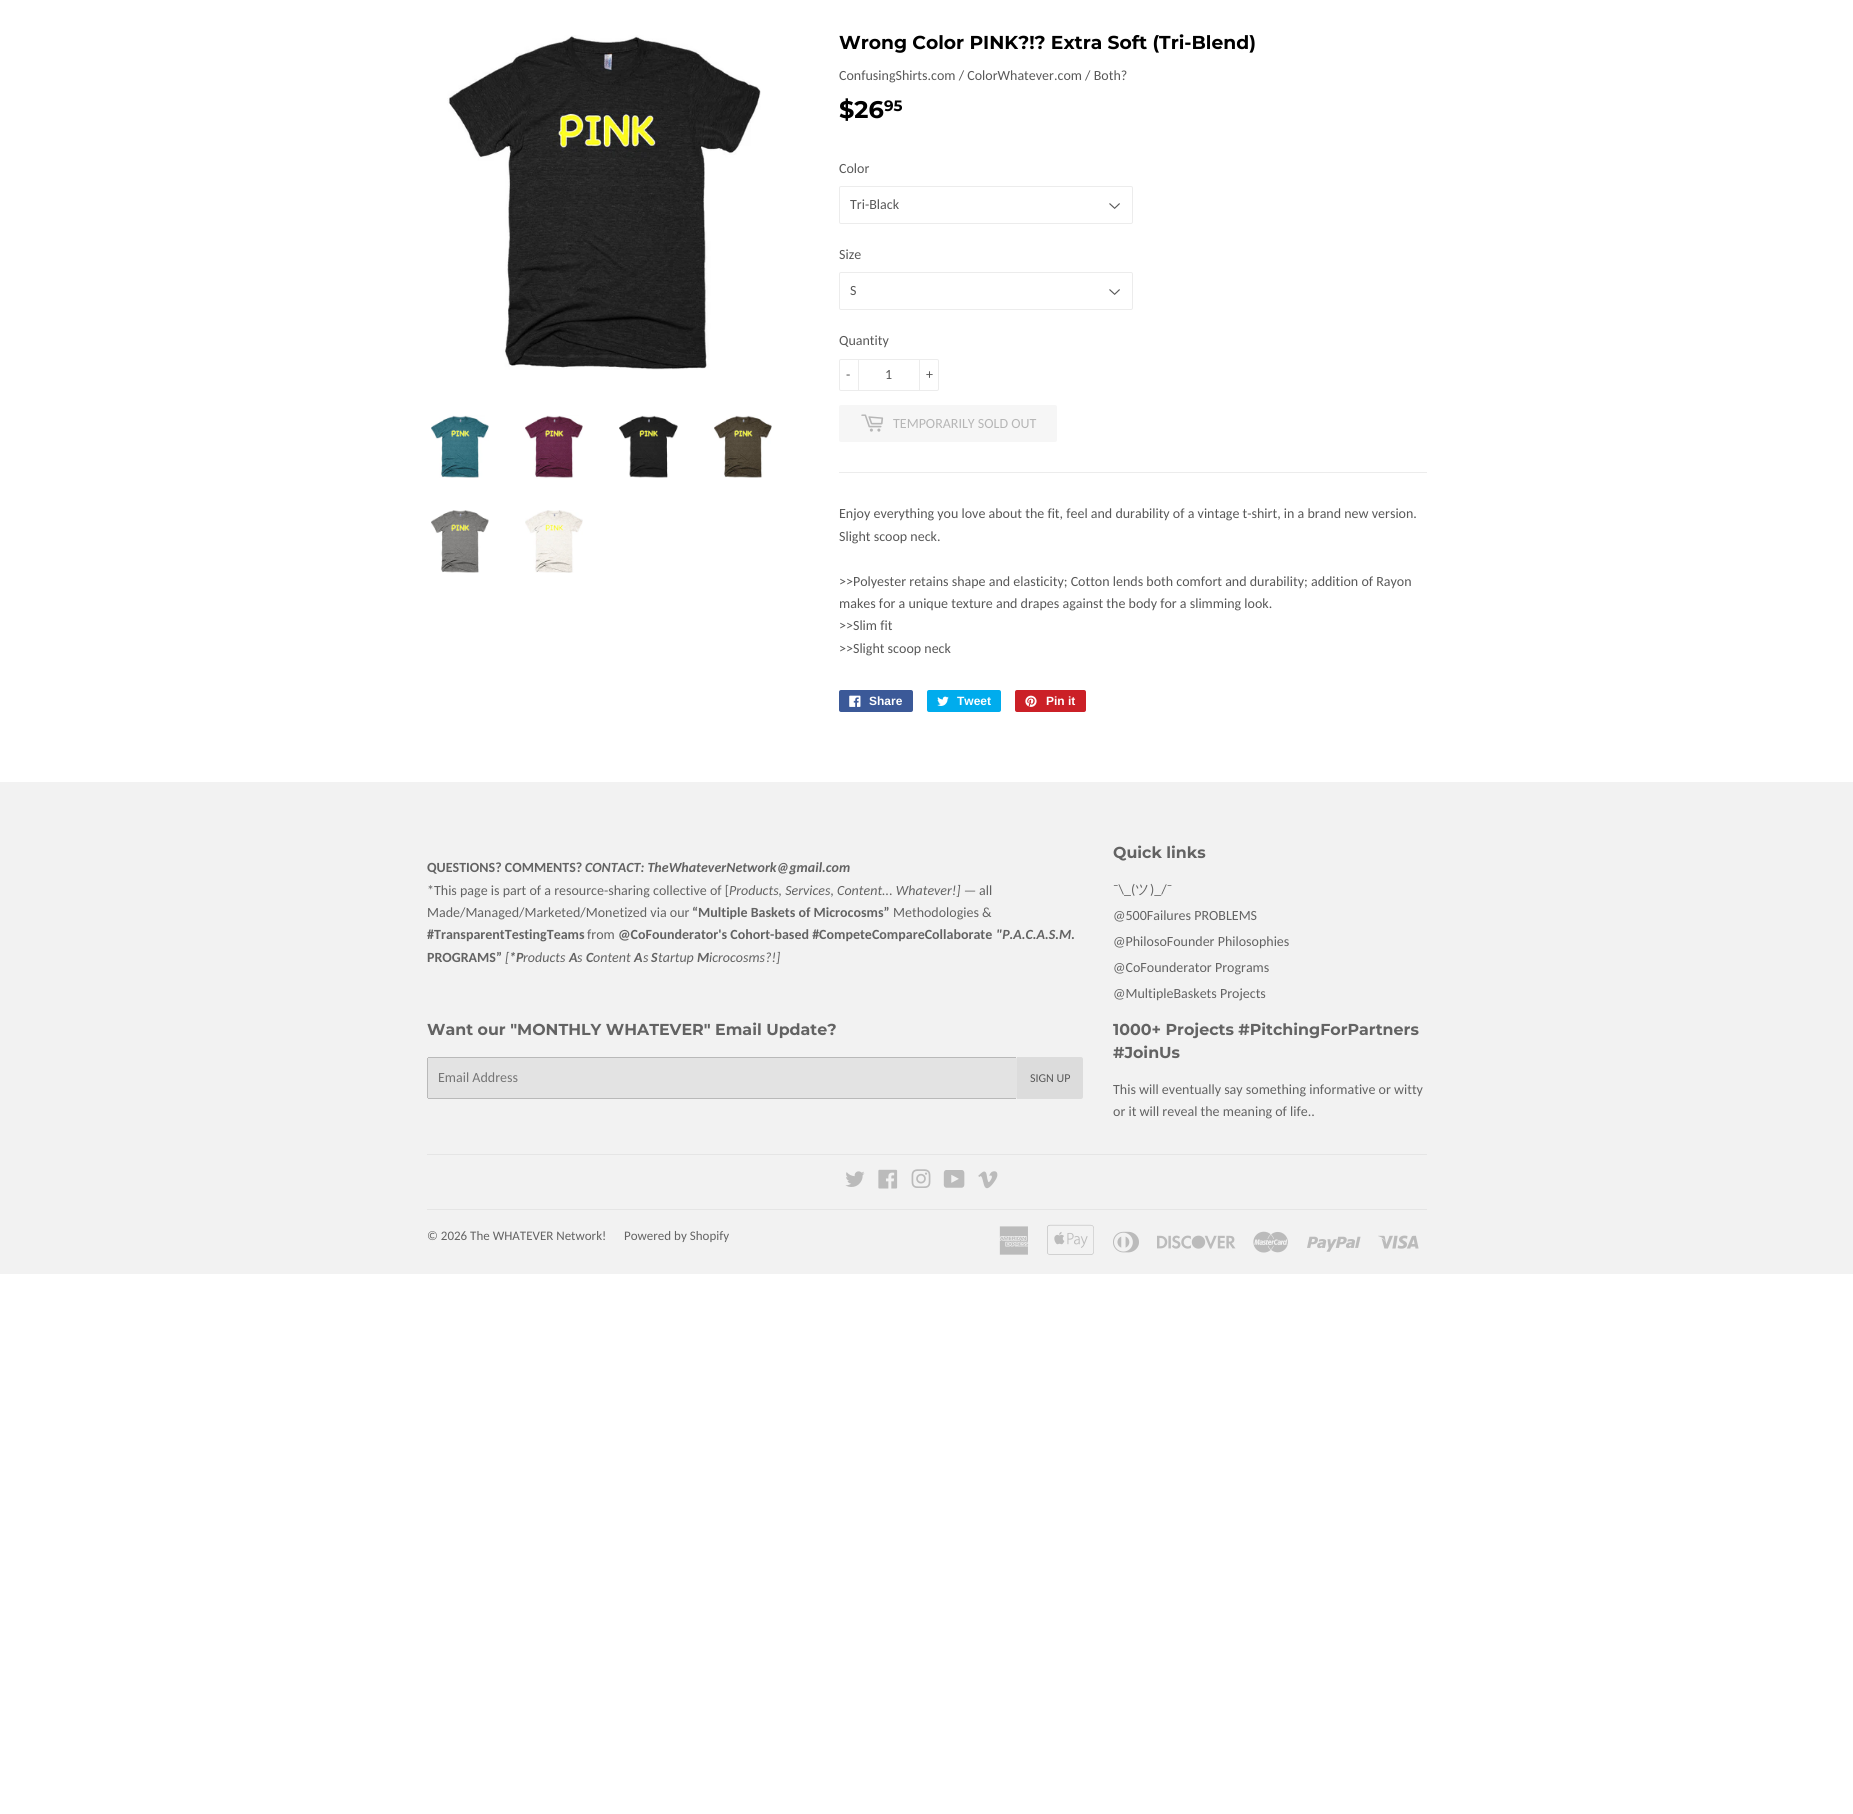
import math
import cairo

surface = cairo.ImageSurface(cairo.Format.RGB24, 1853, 1814)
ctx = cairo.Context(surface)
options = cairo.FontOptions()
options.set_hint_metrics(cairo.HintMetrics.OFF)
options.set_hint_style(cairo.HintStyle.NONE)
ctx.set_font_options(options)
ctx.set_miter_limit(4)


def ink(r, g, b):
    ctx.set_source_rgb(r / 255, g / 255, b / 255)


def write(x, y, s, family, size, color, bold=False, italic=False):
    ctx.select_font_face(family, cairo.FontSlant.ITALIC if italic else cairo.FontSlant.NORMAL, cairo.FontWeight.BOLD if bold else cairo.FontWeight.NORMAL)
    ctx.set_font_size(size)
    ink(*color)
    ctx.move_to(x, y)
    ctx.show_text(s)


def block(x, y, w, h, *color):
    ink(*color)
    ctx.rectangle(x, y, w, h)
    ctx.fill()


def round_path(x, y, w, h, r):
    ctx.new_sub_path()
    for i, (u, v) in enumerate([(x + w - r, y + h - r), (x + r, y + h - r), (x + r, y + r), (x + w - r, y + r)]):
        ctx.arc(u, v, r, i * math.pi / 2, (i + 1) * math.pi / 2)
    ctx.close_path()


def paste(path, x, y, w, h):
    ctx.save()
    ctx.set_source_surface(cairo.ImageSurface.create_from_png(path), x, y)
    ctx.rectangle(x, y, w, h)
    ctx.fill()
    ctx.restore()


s1 = dict(family="Montserrat Thin", size=18.7, color=(0, 0, 0))
s2 = dict(family="Carlito", size=14, color=(88, 88, 88))
s3 = dict(family="Montserrat Thin", size=24, color=(0, 0, 0))
s4 = dict(family="Montserrat Thin", size=15, color=(0, 0, 0))
s5 = dict(family="Carlito", size=14, color=(182, 182, 182))
s6 = dict(family="Liberation Sans", size=12, color=(255, 255, 255), bold=True)
s7 = dict(family="Carlito", size=14, color=(99, 99, 99), bold=True)
s8 = dict(family="Carlito", size=14, color=(99, 99, 99), bold=True, italic=True)
s9 = dict(family="Carlito", size=14, color=(99, 99, 99))
s10 = dict(family="Carlito", size=14, color=(99, 99, 99), italic=True)
s11 = dict(family="Montserrat Thin", size=15.85, color=(99, 99, 99))
s12 = dict(family="WenQuanYi Zen Hei Medium", size=14, color=(99, 99, 99))
s13 = dict(family="Carlito", size=14, color=(117, 117, 117))
s14 = dict(family="Carlito", size=12, color=(88, 88, 88))
s15 = dict(family="Carlito", size=13, color=(99, 99, 99))

ink(255, 255, 255)
ctx.paint()
paste("pic1.png", 447, 35, 314, 335)
paste("pic2.png", 431, 415, 58, 63)
paste("pic3.png", 525, 415, 58, 64)
paste("pic4.png", 619, 415, 59, 63)
paste("pic5.png", 714, 415, 58, 63)
paste("pic6.png", 431, 510, 58, 63)
paste("pic7.png", 525, 510, 58, 63)
write(839, 49, "Wrong Color PINK?!? Extra Soft (Tri-Blend)", **s1)
write(839, 80, "ConfusingShirts.com / ColorWhatever.com / Both?", **s2)
write(839, 118, "$26", **s3)
write(884, 111, "95", **s4)
write(839, 173, "Color", **s2)
paste("pic8.png", 1109, 203, 11, 6)
round_path(839.5, 186.5, 293, 37, 1.5)
ink(236, 236, 236)
ctx.set_line_width(1)
ctx.stroke()
write(850, 209, "Tri-Black", **s2)
write(839, 259, "Size", **s2)
paste("pic8.png", 1109, 289, 11, 6)
round_path(839.5, 272.5, 293, 37, 1.5)
ink(236, 236, 236)
ctx.stroke()
write(850, 295, "S", **s2)
write(839, 345, "Quantity", **s2)
round_path(839.5, 359.5, 99, 31, 1.5)
ink(236, 236, 236)
ctx.stroke()
block(858, 359, 1, 32, 236, 236, 236)
write(846, 379, "-", **s2)
write(885, 379, "1", **s2)
block(919, 359, 1, 32, 236, 236, 236)
write(926, 379, "+", **s2)
ink(246, 246, 246)
round_path(839, 405, 218, 37, 2)
ctx.fill()
paste("pic9.png", 861, 414, 23, 18)
write(893, 428, "TEMPORARILY SOLD OUT", **s5)
block(839, 472, 588, 1, 236, 236, 236)
write(839, 518, "Enjoy everything you love about the fit, feel and durability of a vintage t-shirt, in a brand new version.", **s2)
write(839, 541, "Slight scoop neck.", **s2)
write(839, 586, ">>Polyester retains shape and elasticity; Cotton lends both comfort and durability; addition of Rayon", **s2)
write(839, 608, "makes for a unique texture and drapes against the body for a slimming look.", **s2)
write(839, 630, ">>Slim fit", **s2)
write(839, 653, ">>Slight scoop neck", **s2)
ink(59, 89, 152)
round_path(839, 690, 74, 22, 2)
ctx.fill()
paste("pic10.png", 849, 695, 12, 12)
write(869, 705, "Share", **s6)
ink(0, 172, 237)
round_path(927, 690, 74, 22, 2)
ctx.fill()
paste("pic11.png", 937, 696, 12, 10)
write(957, 705, "Tweet", **s6)
ink(203, 32, 39)
round_path(1015, 690, 71, 22, 2)
ctx.fill()
paste("pic12.png", 1025, 695, 12, 12)
write(1046, 705, "Pin it", **s6)
block(0, 782, 1853, 492, 242, 242, 242)
write(427, 872, "QUESTIONS? COMMENTS?", **s7)
write(585, 872, "CONTACT: TheWhateverNetwork@gmail.com", **s8)
write(427, 895, "*This page is part of a resource-sharing collective of [", **s9)
write(729, 895, "Products, Services, Content... Whatever!] —", **s10)
write(979, 895, "all", **s9)
write(427, 917, "Made/Managed/Marketed/Monetized via our", **s9)
write(692, 917, "“Multiple Baskets of Microcosms”", **s7)
write(893, 917, "Methodologies &", **s9)
write(427, 939, "#TransparentTestingTeams", **s7)
write(587, 939, "from", **s9)
write(618, 939, "@CoFounderator's Cohort-based #CompeteCompareCollaborate", **s7)
write(996, 939, "\"P.A.C.A.S.M.", **s8)
write(427, 962, "PROGRAMS”", **s7)
write(505, 962, "[", **s10)
write(509, 962, "*P", **s8)
write(523, 962, "roducts", **s10)
write(569, 962, "A", **s8)
write(577, 962, "s", **s10)
write(586, 962, "C", **s8)
write(593, 962, "ontent", **s10)
write(634, 962, "A", **s8)
write(643, 962, "s", **s10)
write(651, 962, "S", **s8)
write(658, 962, "tartup", **s10)
write(697, 962, "M", **s8)
write(709, 962, "icrocosms?!]", **s10)
write(1113, 858, "Quick links", **s11)
write(1113, 894, "¯\\_(", **s9)
write(1135, 894, "ツ", **s12)
write(1150, 894, ")_/¯", **s9)
write(1113, 920, "@500Failures PROBLEMS", **s9)
write(1113, 946, "@PhilosoFounder Philosophies", **s9)
write(1113, 972, "@CoFounderator Programs", **s9)
write(1113, 998, "@MultipleBaskets Projects", **s9)
write(427, 1035, "Want our \"MONTHLY WHATEVER\" Email Update?", **s11)
ink(227, 227, 227)
round_path(427, 1057, 590, 42, 2)
ctx.fill()
block(428, 1057, 588, 1, 185, 185, 185)
block(428, 1098, 588, 1, 185, 185, 185)
block(427, 1058, 1, 40, 185, 185, 185)
write(438, 1082, "Email Address", **s13)
ink(220, 220, 220)
ctx.new_path()
ctx.move_to(1017, 1057)
ctx.line_to(1081, 1057)
ctx.curve_to(1082, 1057, 1083, 1058, 1083, 1059)
ctx.line_to(1083, 1097)
ctx.curve_to(1083, 1098, 1082, 1099, 1081, 1099)
ctx.line_to(1017, 1099)
ctx.close_path()
ctx.fill()
write(1030, 1082, "SIGN UP", **s14)
write(1113, 1035, "1000+ Projects #PitchingForPartners", **s11)
write(1113, 1058, "#JoinUs", **s11)
write(1113, 1094, "This will eventually say something informative or witty", **s9)
write(1113, 1116, "or it will reveal the meaning of life..", **s9)
block(427, 1154, 1000, 1, 229, 229, 229)
paste("pic13.png", 845, 1171, 20, 16)
paste("pic14.png", 878, 1169, 20, 20)
paste("pic15.png", 911, 1169, 20, 19)
paste("pic16.png", 943, 1170, 22, 18)
paste("pic17.png", 978, 1171, 20, 18)
block(427, 1209, 1000, 1, 229, 229, 229)
write(427, 1240, "© 2026 The WHATEVER Network!", **s15)
write(624, 1240, "Powered by Shopify", **s15)
paste("pic18.png", 999, 1226, 30, 29)
paste("pic19.png", 1047, 1224, 47, 31)
paste("pic20.png", 1113, 1231, 26, 22)
paste("pic21.png", 1157, 1235, 79, 14)
paste("pic22.png", 1253, 1231, 35, 22)
paste("pic23.png", 1307, 1236, 54, 16)
paste("pic24.png", 1378, 1235, 41, 14)
surface.write_to_png("screenshot.png")
